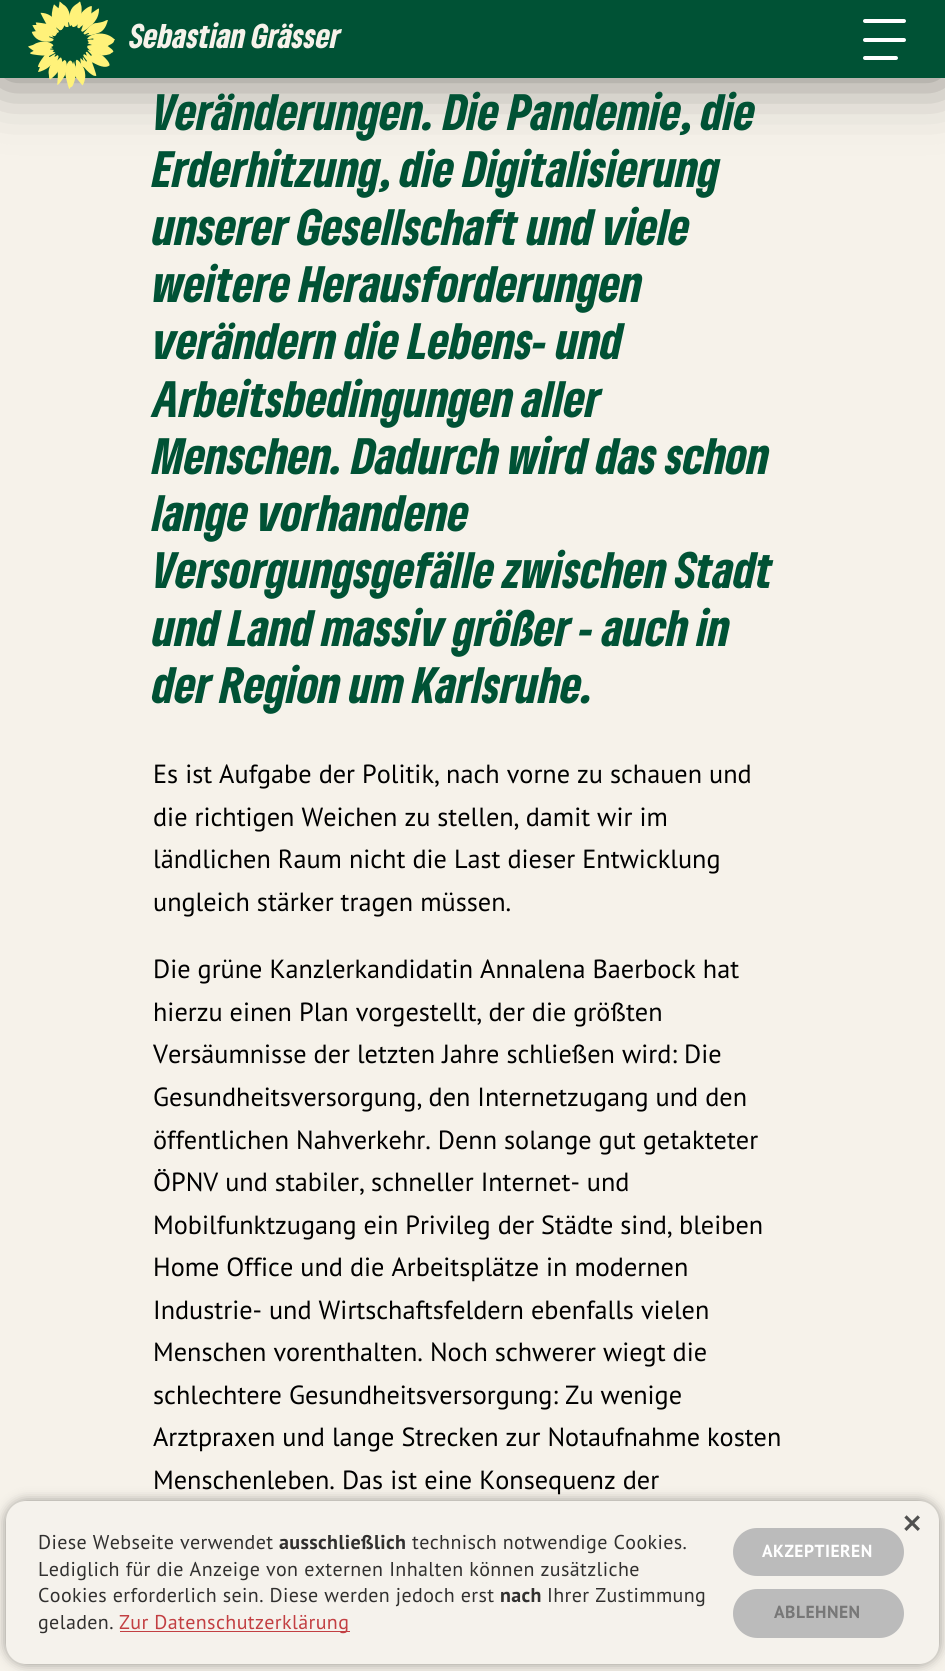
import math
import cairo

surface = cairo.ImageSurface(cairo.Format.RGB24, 945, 1671)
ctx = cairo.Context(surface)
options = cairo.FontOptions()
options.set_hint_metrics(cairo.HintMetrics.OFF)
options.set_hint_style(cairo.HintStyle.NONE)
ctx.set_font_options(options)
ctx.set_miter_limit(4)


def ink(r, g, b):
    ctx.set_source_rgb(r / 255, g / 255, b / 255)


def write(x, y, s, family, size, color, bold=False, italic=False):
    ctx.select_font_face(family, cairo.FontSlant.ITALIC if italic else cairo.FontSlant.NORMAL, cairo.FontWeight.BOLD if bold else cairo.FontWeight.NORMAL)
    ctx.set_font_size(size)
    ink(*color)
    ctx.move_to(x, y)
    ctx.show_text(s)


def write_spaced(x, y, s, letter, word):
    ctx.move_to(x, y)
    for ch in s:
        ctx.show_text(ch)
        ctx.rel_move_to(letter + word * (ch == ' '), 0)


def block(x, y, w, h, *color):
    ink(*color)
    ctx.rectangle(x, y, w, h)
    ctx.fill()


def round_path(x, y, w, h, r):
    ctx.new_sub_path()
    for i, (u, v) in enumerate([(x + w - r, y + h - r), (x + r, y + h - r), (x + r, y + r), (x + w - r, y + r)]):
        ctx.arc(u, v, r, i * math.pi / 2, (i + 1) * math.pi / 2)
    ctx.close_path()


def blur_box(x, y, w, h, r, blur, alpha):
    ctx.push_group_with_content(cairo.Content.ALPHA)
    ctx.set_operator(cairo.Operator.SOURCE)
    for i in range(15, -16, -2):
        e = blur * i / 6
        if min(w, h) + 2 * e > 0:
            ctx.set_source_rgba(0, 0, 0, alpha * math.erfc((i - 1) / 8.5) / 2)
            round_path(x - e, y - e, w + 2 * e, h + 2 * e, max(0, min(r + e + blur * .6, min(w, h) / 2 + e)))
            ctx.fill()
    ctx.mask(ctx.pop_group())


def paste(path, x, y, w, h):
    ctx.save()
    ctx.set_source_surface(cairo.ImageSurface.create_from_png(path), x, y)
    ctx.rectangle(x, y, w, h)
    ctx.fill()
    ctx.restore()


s1 = dict(family="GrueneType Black", size=32, color=(246, 242, 234))
s2 = dict(family="GrueneType Black", size=47.75, color=(0, 82, 53))
s3 = dict(family="PT Sans", size=26.25, color=(0, 0, 0))
s4 = dict(family="PT Sans", size=44, color=(80, 80, 79))

ink(246, 242, 234)
ctx.paint()
ink(0, 0, 0)
blur_box(0, 0, 945, 78, 0, 31, 0.5)
block(0, 0, 945, 78, 0, 82, 53)
paste("pic1.png", 28, 1, 87, 88)
write(130, 48, "Sebastian Grässer", **s1)
ink(255, 255, 255)
round_path(863, 19, 43, 4, 2)
ctx.fill()
round_path(863, 38, 43, 4, 2)
ctx.fill()
round_path(863, 56, 35, 4, 2)
ctx.fill()
write(153, 130, "Veränderungen. Die Pandemie, die", **s2)
write(153, 187, "Erderhitzung, die Digitalisierung", **s2)
write(153, 245, "unserer Gesellschaft und viele", **s2)
write(153, 302, "weitere Herausforderungen", **s2)
write(153, 359, "verändern die Lebens- und", **s2)
write(153, 417, "Arbeitsbedingungen aller", **s2)
write(153, 474, "Menschen. Dadurch wird das schon", **s2)
write(153, 531, "lange vorhandene", **s2)
write(153, 588, "Versorgungsgefälle zwischen Stadt", **s2)
write(153, 646, "und Land massiv größer - auch in", **s2)
write(153, 703, "der Region um Karlsruhe.", **s2)
write(153, 783, "Es ist Aufgabe der Politik, nach vorne zu schauen und", **s3)
write(153, 826, "die richtigen Weichen zu stellen, damit wir im", **s3)
write(153, 868, "ländlichen Raum nicht die Last dieser Entwicklung", **s3)
write(153, 911, "ungleich stärker tragen müssen.", **s3)
write(153, 978, "Die grüne Kanzlerkandidatin Annalena Baerbock hat", **s3)
write(153, 1021, "hierzu einen Plan vorgestellt, der die größten", **s3)
write(153, 1063, "Versäumnisse der letzten Jahre schließen wird: Die", **s3)
write(153, 1106, "Gesundheitsversorgung, den Internetzugang und den", **s3)
write(153, 1149, "öffentlichen Nahverkehr. Denn solange gut getakteter", **s3)
write(153, 1191, "ÖPNV und stabiler, schneller Internet- und", **s3)
write(153, 1234, "Mobilfunktzugang ein Privileg der Städte sind, bleiben", **s3)
write(153, 1276, "Home Office und die Arbeitsplätze in modernen", **s3)
write(153, 1319, "Industrie- und Wirtschaftsfeldern ebenfalls vielen", **s3)
write(153, 1361, "Menschen vorenthalten. Noch schwerer wiegt die", **s3)
write(153, 1404, "schlechtere Gesundheitsversorgung: Zu wenige", **s3)
write(153, 1446, "Arztpraxen und lange Strecken zur Notaufnahme kosten", **s3)
write(153, 1489, "Menschenleben. Das ist eine Konsequenz der", **s3)
ink(0, 0, 0)
blur_box(6, 1501, 933, 163, 20, 6, 0.4)
ink(245, 242, 236)
round_path(6, 1501, 933, 163, 20)
ctx.fill()
write(901, 1538, "×", **s4)
ctx.set_font_size(20)
ink(49, 48, 47)
write_spaced(38, 1549, "Diese Webseite verwendet", 0.38, 0)
ctx.select_font_face("PT Sans", cairo.FontSlant.NORMAL, cairo.FontWeight.BOLD)
write_spaced(279, 1549, "ausschließlich", 0.38, 0)
ctx.select_font_face("PT Sans")
write_spaced(412, 1549, "technisch notwendige Cookies.", 0.38, 0)
write_spaced(38, 1576, "Lediglich für die Anzeige von externen Inhalten können zusätzliche", 0.38, 0)
write_spaced(38, 1602, "Cookies erforderlich sein. Diese werden jedoch erst", 0.38, 0)
ctx.select_font_face("PT Sans", cairo.FontSlant.NORMAL, cairo.FontWeight.BOLD)
write_spaced(500, 1602, "nach", 0.38, 0)
ctx.select_font_face("PT Sans")
write_spaced(547, 1602, "Ihrer Zustimmung", 0.38, 0)
write_spaced(38, 1629, "geladen.", 0.38, 0)
block(120, 1631, 230, 1, 194, 63, 66)
write_spaced(119, 1629, "Zur Datenschutzerklärung", 0.38, 0)
ink(187, 187, 187)
round_path(733, 1528, 171, 48, 24)
ctx.fill()
ctx.select_font_face("PT Sans", cairo.FontSlant.NORMAL, cairo.FontWeight.BOLD)
ctx.set_font_size(17.5)
ink(255, 255, 255)
write_spaced(762, 1557, "AKZEPTIEREN", 0.5, 0)
ink(187, 187, 187)
round_path(733, 1589, 171, 49, 24.5)
ctx.fill()
ink(119, 119, 119)
write_spaced(774, 1618, "ABLEHNEN", 0.5, 0)
surface.write_to_png("screenshot.png")
